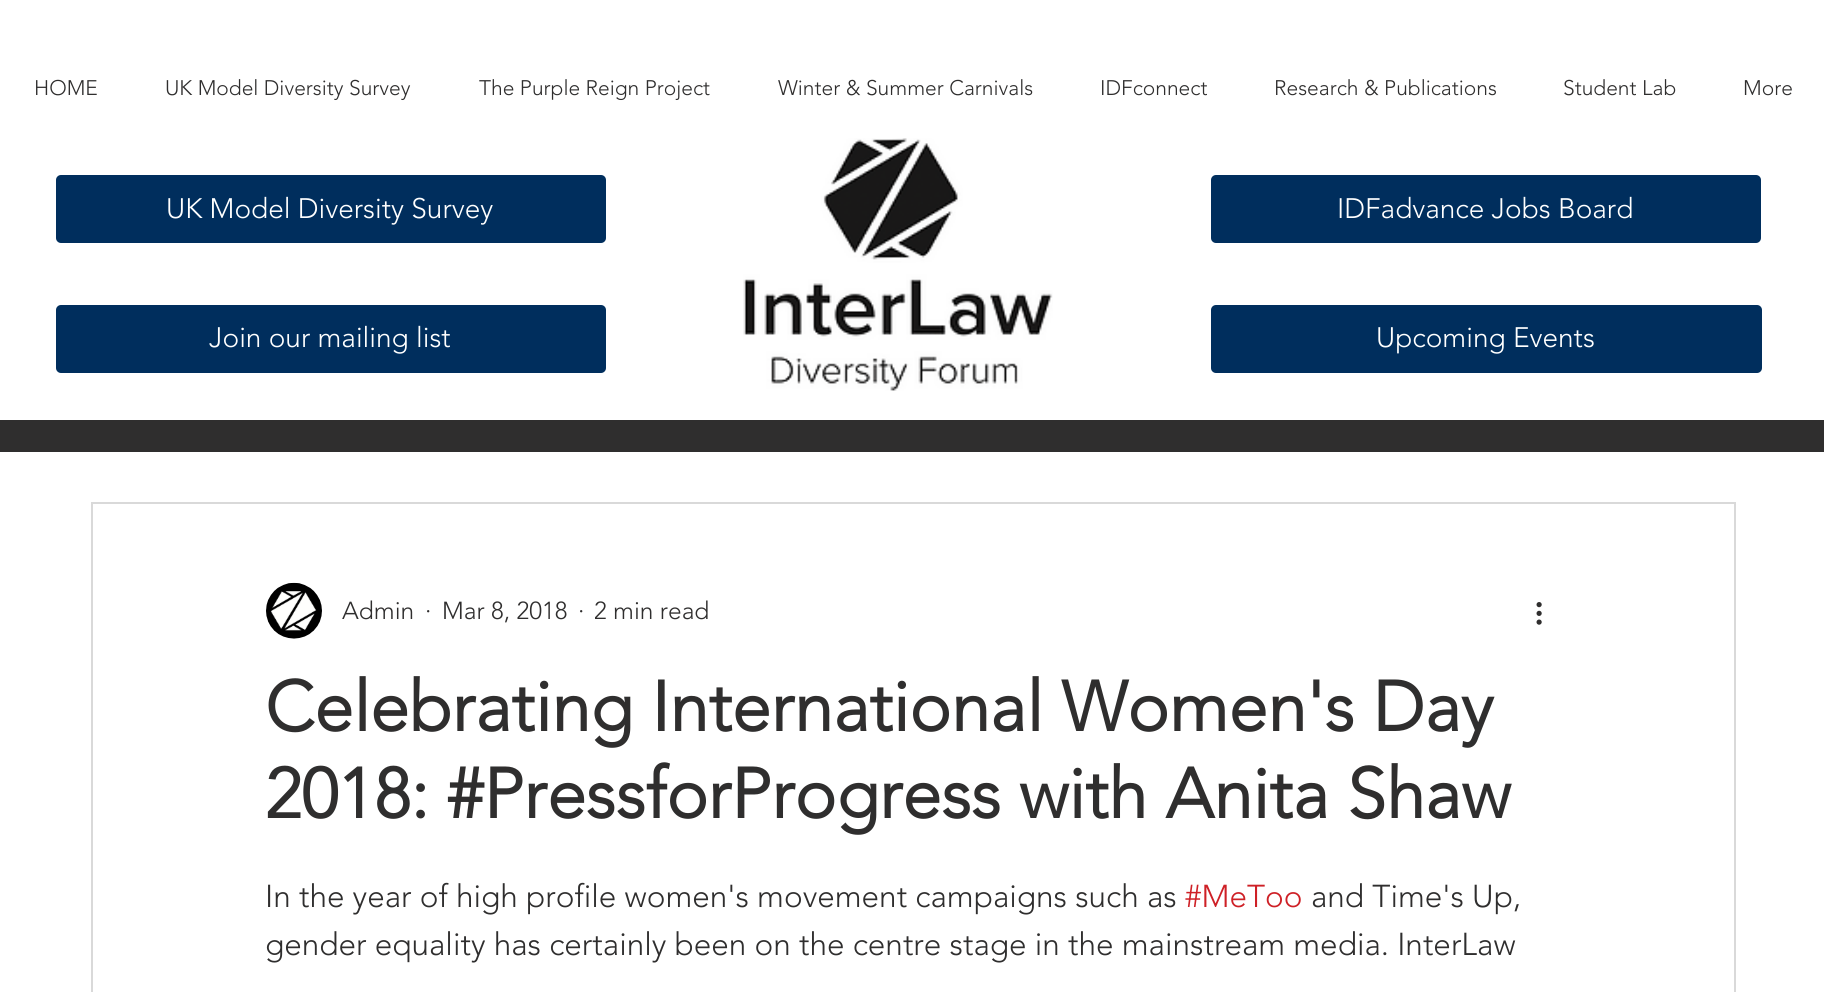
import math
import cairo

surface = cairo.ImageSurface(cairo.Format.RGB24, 1824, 992)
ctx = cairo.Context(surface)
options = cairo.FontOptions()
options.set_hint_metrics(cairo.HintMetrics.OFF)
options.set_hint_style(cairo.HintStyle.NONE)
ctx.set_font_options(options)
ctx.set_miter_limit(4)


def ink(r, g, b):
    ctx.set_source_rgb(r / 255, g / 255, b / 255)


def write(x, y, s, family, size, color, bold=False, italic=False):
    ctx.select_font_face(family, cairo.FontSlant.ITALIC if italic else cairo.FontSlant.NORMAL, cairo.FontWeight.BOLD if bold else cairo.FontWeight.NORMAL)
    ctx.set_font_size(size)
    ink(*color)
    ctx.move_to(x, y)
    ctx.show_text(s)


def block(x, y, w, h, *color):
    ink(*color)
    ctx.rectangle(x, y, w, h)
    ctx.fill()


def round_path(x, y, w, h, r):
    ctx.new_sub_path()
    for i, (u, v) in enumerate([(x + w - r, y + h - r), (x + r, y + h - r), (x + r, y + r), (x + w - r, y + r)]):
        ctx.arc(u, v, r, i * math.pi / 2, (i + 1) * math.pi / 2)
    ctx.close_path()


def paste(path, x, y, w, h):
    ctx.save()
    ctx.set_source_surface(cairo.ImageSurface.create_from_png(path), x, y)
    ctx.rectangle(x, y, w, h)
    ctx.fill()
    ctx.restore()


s1 = dict(family="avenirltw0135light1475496 Light", size=21, color=(47, 46, 46))
s2 = dict(family="avenirltw0135light1475496 Light", size=28, color=(255, 255, 255))
s3 = dict(family="avenirltw0135light1475496 Light", size=24.5, color=(47, 46, 46))
s4 = dict(family="avenirltw0135light1475496", size=70, color=(47, 46, 46), bold=True)
s5 = dict(family="avenirltw0135light1475496 Light", size=31.5, color=(47, 46, 46))
s6 = dict(family="avenirltw0135light1475496 Light", size=31.5, color=(206, 32, 38))

ink(255, 255, 255)
ctx.paint()
write(34, 95, "HOME", **s1)
write(165, 95, "UK Model Diversity Survey", **s1)
write(479, 95, "The Purple Reign Project", **s1)
write(778, 95, "Winter & Summer Carnivals", **s1)
write(1100, 95, "IDFconnect", **s1)
write(1274, 95, "Research & Publications", **s1)
write(1563, 95, "Student Lab", **s1)
write(1743, 95, "More", **s1)
ink(0, 46, 93)
round_path(56, 175, 550, 68, 5)
ctx.fill()
write(166, 218, "UK Model Diversity Survey", **s2)
paste("pic1.png", 743, 138, 310, 253)
ink(0, 46, 93)
round_path(1211, 175, 550, 68, 5)
ctx.fill()
write(1337, 218, "IDFadvance Jobs Board", **s2)
ink(0, 46, 93)
round_path(56, 305, 550, 68, 5)
ctx.fill()
write(209, 347, "Join our mailing list", **s2)
ink(0, 46, 93)
round_path(1211, 305, 551, 68, 5)
ctx.fill()
write(1376, 347, "Upcoming Events", **s2)
block(0, 420, 1824, 32, 47, 46, 46)
ctx.rectangle(92, 503, 1643, 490)
ink(217, 217, 217)
ctx.stroke()
paste("pic2.png", 266, 582, 56, 57)
write(342, 619, "Admin", **s3)
write(425, 619, "·", **s3)
write(442, 619, "Mar 8, 2018", **s3)
write(578, 619, "·", **s3)
write(594, 619, "2 min read", **s3)
paste("pic3.png", 1536, 602, 6, 23)
write(265, 731, "Celebrating International Women's Day", **s4)
write(265, 818, "2018: #PressforProgress with Anita Shaw", **s4)
write(265, 907, "In the year of high profile women's movement campaigns such as", **s5)
write(1185, 907, "#MeToo", **s6)
write(1311, 907, "and Time's Up,", **s5)
write(265, 955, "gender equality has certainly been on the centre stage in the mainstream media. InterLaw", **s5)
surface.write_to_png("screenshot.png")
